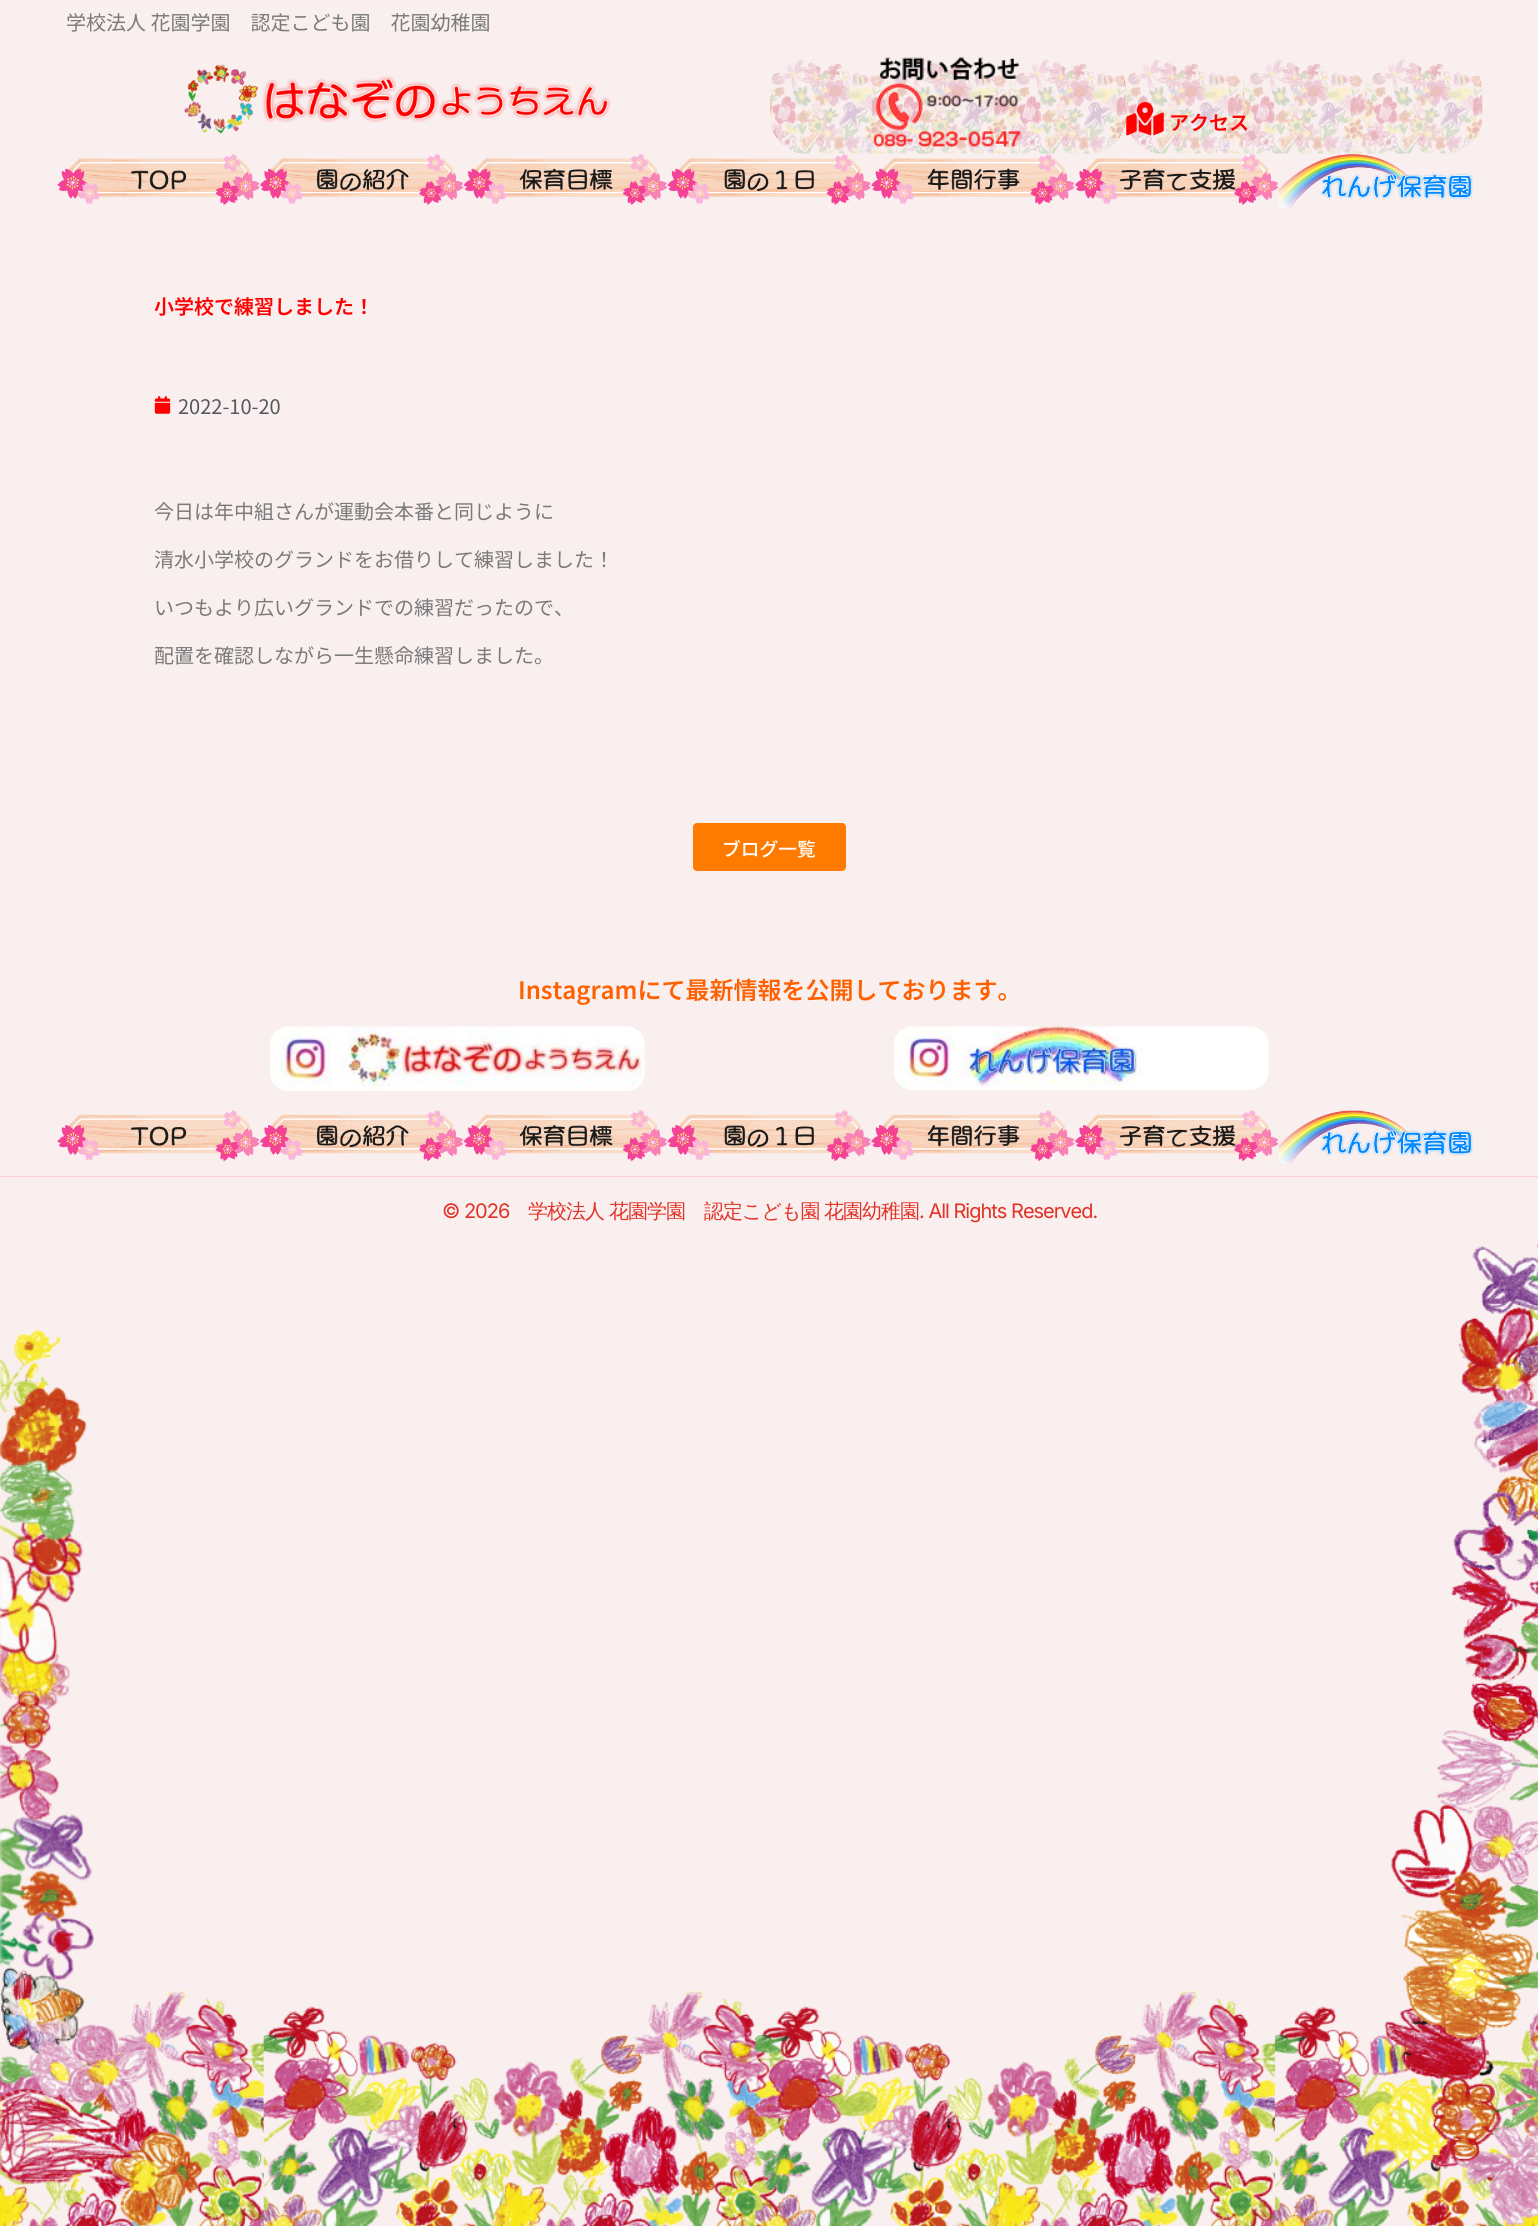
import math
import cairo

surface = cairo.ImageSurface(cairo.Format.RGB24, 1538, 2226)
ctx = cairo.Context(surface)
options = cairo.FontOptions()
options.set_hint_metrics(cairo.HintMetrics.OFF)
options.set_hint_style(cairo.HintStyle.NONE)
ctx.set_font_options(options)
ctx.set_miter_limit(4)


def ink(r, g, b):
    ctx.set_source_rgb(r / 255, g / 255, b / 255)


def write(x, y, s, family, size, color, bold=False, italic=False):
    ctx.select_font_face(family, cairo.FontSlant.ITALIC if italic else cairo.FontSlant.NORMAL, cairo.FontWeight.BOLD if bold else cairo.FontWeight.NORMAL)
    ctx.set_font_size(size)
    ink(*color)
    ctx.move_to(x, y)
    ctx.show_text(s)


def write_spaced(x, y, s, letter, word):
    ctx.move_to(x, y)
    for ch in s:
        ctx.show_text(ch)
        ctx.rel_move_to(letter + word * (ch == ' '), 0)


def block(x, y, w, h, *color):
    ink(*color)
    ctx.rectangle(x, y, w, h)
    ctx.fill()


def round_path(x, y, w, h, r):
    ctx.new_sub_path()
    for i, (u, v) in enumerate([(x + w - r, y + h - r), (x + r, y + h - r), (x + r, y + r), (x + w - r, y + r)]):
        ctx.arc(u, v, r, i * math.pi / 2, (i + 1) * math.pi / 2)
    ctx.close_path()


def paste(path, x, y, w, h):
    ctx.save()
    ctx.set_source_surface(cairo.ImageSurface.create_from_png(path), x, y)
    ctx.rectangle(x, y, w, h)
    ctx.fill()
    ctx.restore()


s1 = dict(family="Noto Sans JP", size=20, color=(122, 122, 122))
s2 = dict(family="Noto Sans JP SemiBold", size=20, color=(255, 0, 0))
s3 = dict(family="Noto Sans JP", size=20, color=(84, 89, 95))
s4 = dict(family="Noto Sans JP Medium", size=18.75, color=(255, 255, 255))
s5 = dict(family="Noto Sans JP SemiBold", size=24, color=(255, 96, 0))

ink(250, 239, 239)
ctx.paint()
paste("pic1.png", 0, 1243, 1538, 983)
write(66, 30, "学校法人 花園学園　認定こども園　花園幼稚園", **s1)
paste("pic2.png", 184, 64, 427, 70)
paste("pic3.png", 770, 58, 357, 96)
ctx.set_source_rgba(0.98, 0.937, 0.937, 0.74)
round_path(770, 54, 356, 100, 38)
ctx.fill()
paste("pic4.png", 873, 57, 149, 91)
paste("pic5.png", 1126, 58, 357, 96)
round_path(1126, 54, 357, 100, 38)
ctx.fill()
paste("pic6.png", 1126, 102, 38, 34)
write(1169, 130, "アクセス", **s2)
paste("pic7.png", 57, 153, 203, 52)
paste("pic8.png", 260, 153, 204, 52)
paste("pic9.png", 463, 153, 205, 52)
paste("pic10.png", 667, 153, 204, 52)
paste("pic11.png", 871, 153, 204, 52)
paste("pic12.png", 1075, 153, 204, 52)
paste("pic13.png", 1278, 154, 195, 54)
write(154, 314, "小学校で練習しました！", **s2)
paste("pic14.png", 154, 396, 17, 18)
write(178, 414, "2022-10-20", **s3)
write(154, 519, "今日は年中組さんが運動会本番と同じように", **s1)
write(154, 567, "清水小学校のグランドをお借りして練習しました！", **s1)
write(154, 615, "いつもより広いグランドでの練習だったので、", **s1)
write(154, 663, "配置を確認しながら一生懸命練習しました。", **s1)
ink(255, 123, 0)
round_path(693, 823, 153, 48, 4)
ctx.fill()
write(722, 856, "ブログ一覧", **s4)
write(518, 999, "Instagramにて最新情報を公開しております。", **s5)
paste("pic15.png", 270, 1026, 375, 65)
paste("pic16.png", 894, 1026, 375, 64)
paste("pic17.png", 57, 1110, 203, 52)
paste("pic18.png", 260, 1110, 204, 52)
paste("pic19.png", 463, 1110, 205, 52)
paste("pic20.png", 667, 1110, 204, 52)
paste("pic21.png", 871, 1110, 204, 52)
paste("pic22.png", 1075, 1110, 204, 52)
paste("pic23.png", 1278, 1110, 195, 54)
block(0, 1176, 1538, 1, 255, 206, 206)
ctx.select_font_face("Inter")
ctx.set_font_size(20)
ink(226, 49, 37)
write_spaced(442, 1218, "© 2026", -1, 0)
ctx.select_font_face("WenQuanYi Zen Hei Medium")
write_spaced(528, 1218, "学校法人", -1, 0)
write_spaced(609, 1218, "花園学園　認定こども園", -1, 0)
write_spaced(824, 1218, "花園幼稚園", -1, 0)
ctx.select_font_face("Inter")
write_spaced(919, 1218, ". All Rights Reserved.", -1, 0)
surface.write_to_png("screenshot.png")
